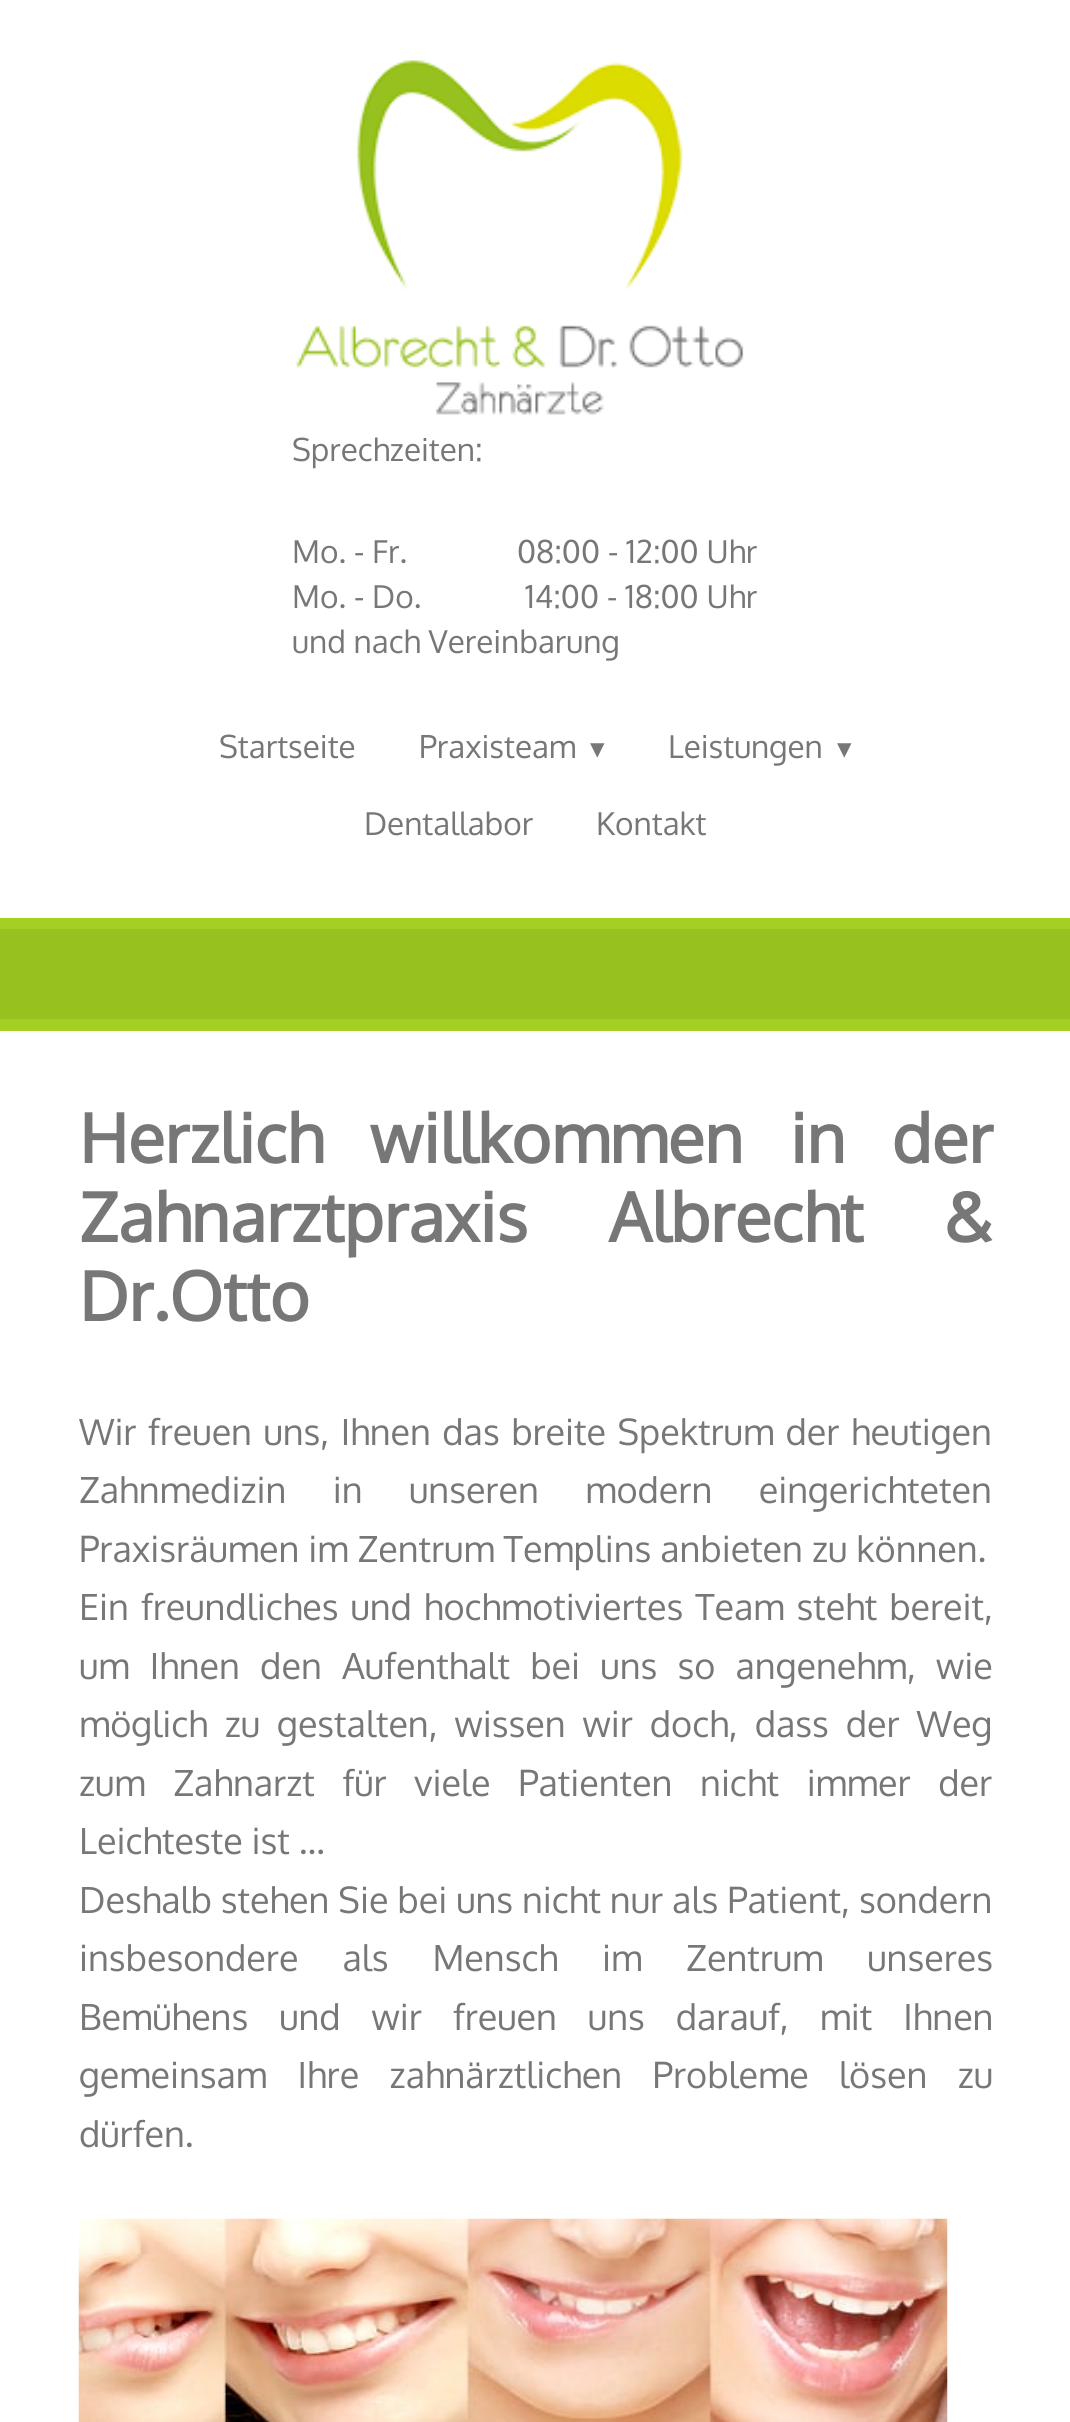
import math
import cairo

surface = cairo.ImageSurface(cairo.Format.RGB24, 1070, 2422)
ctx = cairo.Context(surface)
options = cairo.FontOptions()
options.set_hint_metrics(cairo.HintMetrics.OFF)
options.set_hint_style(cairo.HintStyle.NONE)
ctx.set_font_options(options)
ctx.set_miter_limit(4)


def ink(r, g, b):
    ctx.set_source_rgb(r / 255, g / 255, b / 255)


def write(x, y, s, family, size, color, bold=False, italic=False):
    ctx.select_font_face(family, cairo.FontSlant.ITALIC if italic else cairo.FontSlant.NORMAL, cairo.FontWeight.BOLD if bold else cairo.FontWeight.NORMAL)
    ctx.set_font_size(size)
    ink(*color)
    ctx.move_to(x, y)
    ctx.show_text(s)


def write_spaced(x, y, s, letter, word):
    ctx.move_to(x, y)
    for ch in s:
        ctx.show_text(ch)
        ctx.rel_move_to(letter + word * (ch == ' '), 0)


def block(x, y, w, h, *color):
    ink(*color)
    ctx.rectangle(x, y, w, h)
    ctx.fill()


def paste(path, x, y, w, h):
    ctx.save()
    ctx.set_source_surface(cairo.ImageSurface.create_from_png(path), x, y)
    ctx.rectangle(x, y, w, h)
    ctx.fill()
    ctx.restore()


s1 = dict(family="Oxygen", size=31.5, color=(119, 119, 119))
s2 = dict(family="DejaVu Sans", size=29, color=(119, 119, 119))
s3 = dict(family="Oxygen", size=67.5, color=(119, 119, 119), bold=True)
s4 = dict(family="Oxygen", size=36, color=(119, 119, 119))

ink(255, 255, 255)
ctx.paint()
paste("pic1.png", 296, 60, 448, 355)
write(292, 461, "Sprechzeiten:", **s1)
write(292, 563, "Mo. - Fr.", **s1)
write(517, 563, "08:00 - 12:00 Uhr", **s1)
write(292, 608, "Mo. - Do.", **s1)
write(525, 608, "14:00 - 18:00 Uhr", **s1)
write(292, 653, "und nach Vereinbarung", **s1)
write(219, 758, "Startseite", **s1)
write(419, 758, "Praxisteam", **s1)
write(590, 758, "▾", **s2)
write(668, 758, "Leistungen", **s1)
write(837, 758, "▾", **s2)
write(364, 835, "Dentallabor", **s1)
write(596, 835, "Kontakt", **s1)
block(0, 929, 1070, 90, 151, 193, 31)
block(0, 918, 1070, 11, 163, 208, 34)
block(0, 1019, 1070, 12, 163, 208, 34)
ctx.select_font_face("Oxygen", cairo.FontSlant.NORMAL, cairo.FontWeight.BOLD)
ctx.set_font_size(67.5)
ink(119, 119, 119)
write_spaced(79, 1163, "Herzlich willkommen in der", 0, 29.5)
write_spaced(79, 1242, "Zahnarztpraxis Albrecht &", 0, 64)
write(79, 1321, "Dr.Otto", **s3)
ctx.select_font_face("Oxygen")
ctx.set_font_size(36)
write_spaced(79, 1445, "Wir freuen uns, Ihnen das breite Spektrum der heutigen", 0, 2.5)
write_spaced(79, 1503, "Zahnmedizin in unseren modern eingerichteten", 0, 37.5)
write(79, 1562, "Praxisräumen im Zentrum Templins anbieten zu können.", **s4)
write_spaced(79, 1620, "Ein freundliches und hochmotiviertes Team steht bereit,", 0, 3)
write_spaced(79, 1679, "um Ihnen den Aufenthalt bei uns so angenehm, wie", 0, 11.25)
write_spaced(79, 1737, "möglich zu gestalten, wissen wir doch, dass der Weg", 0, 8)
write_spaced(79, 1796, "zum Zahnarzt für viele Patienten nicht immer der", 0, 18.75)
write(79, 1854, "Leichteste ist …", **s4)
write(79, 1913, "Deshalb stehen Sie bei uns nicht nur als Patient, sondern", **s4)
write_spaced(79, 1971, "insbesondere als Mensch im Zentrum unseres", 0, 35)
write_spaced(79, 2030, "Bemühens und wir freuen uns darauf, mit Ihnen", 0, 22)
write_spaced(79, 2088, "gemeinsam Ihre zahnärztlichen Probleme lösen zu", 0, 21.5)
write(79, 2147, "dürfen.", **s4)
paste("pic2.png", 78, 2218, 870, 204)
surface.write_to_png("screenshot.png")
